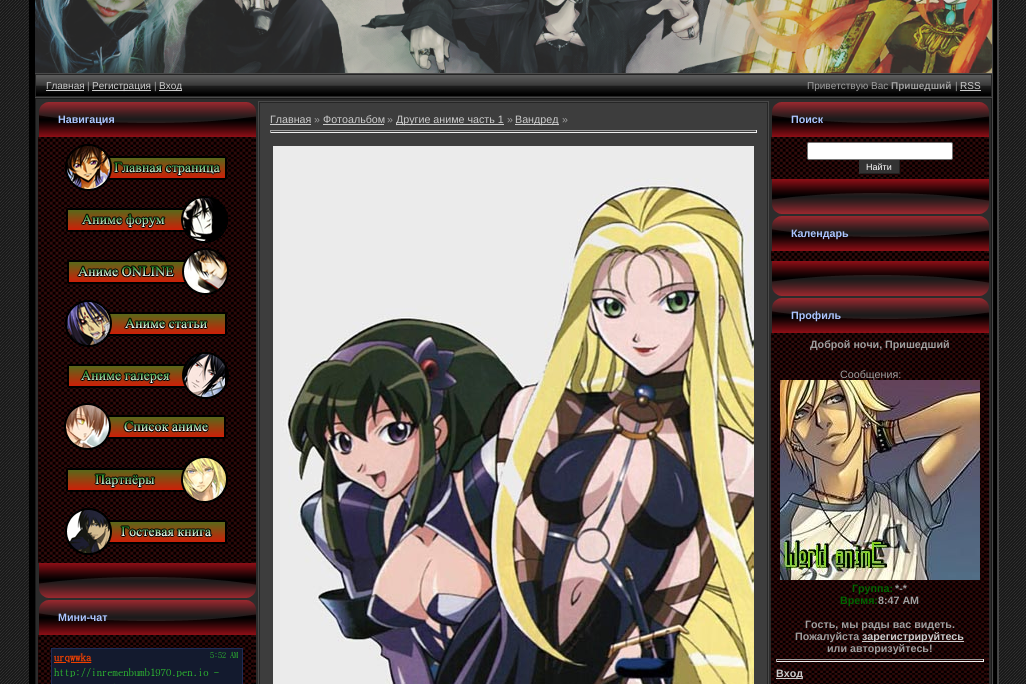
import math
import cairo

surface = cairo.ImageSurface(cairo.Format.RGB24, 1026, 684)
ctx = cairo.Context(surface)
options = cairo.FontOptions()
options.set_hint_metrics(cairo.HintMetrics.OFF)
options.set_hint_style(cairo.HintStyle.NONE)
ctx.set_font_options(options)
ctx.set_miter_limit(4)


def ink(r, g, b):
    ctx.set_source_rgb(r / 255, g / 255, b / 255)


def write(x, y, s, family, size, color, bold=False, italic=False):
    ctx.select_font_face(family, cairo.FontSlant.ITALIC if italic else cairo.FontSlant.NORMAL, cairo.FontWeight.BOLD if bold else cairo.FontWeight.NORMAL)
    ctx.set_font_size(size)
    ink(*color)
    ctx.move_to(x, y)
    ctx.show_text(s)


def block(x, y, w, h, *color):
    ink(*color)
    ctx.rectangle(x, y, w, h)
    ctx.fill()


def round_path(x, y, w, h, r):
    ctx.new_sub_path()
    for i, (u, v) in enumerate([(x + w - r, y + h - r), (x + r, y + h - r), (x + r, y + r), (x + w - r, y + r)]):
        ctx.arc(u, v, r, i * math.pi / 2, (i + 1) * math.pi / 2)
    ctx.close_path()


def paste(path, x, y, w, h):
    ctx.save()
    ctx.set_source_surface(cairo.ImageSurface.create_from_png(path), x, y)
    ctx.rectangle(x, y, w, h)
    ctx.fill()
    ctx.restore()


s1 = dict(family="Liberation Sans", size=10, color=(204, 204, 204))
s2 = dict(family="Liberation Sans", size=10, color=(159, 159, 159))
s3 = dict(family="Liberation Sans", size=10, color=(159, 159, 159), bold=True)
s4 = dict(family="Liberation Sans", size=10.7, color=(172, 197, 255), bold=True)
s5 = dict(family="Liberation Sans", size=10.7, color=(204, 204, 204))
s6 = dict(family="Liberation Sans", size=10.7, color=(159, 159, 159))
s7 = dict(family="Liberation Sans", size=9, color=(255, 255, 255))
s8 = dict(family="Liberation Sans", size=10.7, color=(159, 159, 159), bold=True)
s9 = dict(family="Liberation Sans", size=10.7, color=(0, 100, 0), bold=True)
s10 = dict(family="Liberation Sans", size=10.7, color=(204, 204, 204), bold=True)

ink(255, 255, 255)
ctx.paint()
paste("pic1.png", 0, 0, 1026, 684)
block(29, 0, 6, 684, 0, 0, 0)
paste("pic2.png", 35, 0, 957, 73)
block(35, 73, 957, 1, 73, 73, 73)
paste("pic3.png", 36, 75, 955, 21)
ctx.rectangle(35.5, 74.5, 956, 22)
ink(38, 38, 38)
ctx.set_line_width(1)
ctx.stroke()
write(46, 89, "Главная", **s1)
block(46, 90, 38, 1, 204, 204, 204)
write(87, 89, "|", **s2)
block(92, 90, 59, 1, 204, 204, 204)
write(92, 89, "Регистрация", **s1)
write(154, 89, "|", **s2)
block(159, 90, 23, 1, 204, 204, 204)
write(159, 89, "Вход", **s1)
write(807, 89, "Приветствую Вас", **s2)
write(891, 89, "Пришедший", **s3)
write(955, 89, "|", **s2)
write(960, 89, "RSS", **s1)
block(960, 90, 21, 1, 204, 204, 204)
block(35, 97, 957, 1, 73, 73, 73)
ink(44, 44, 44)
ctx.rectangle(35.5, 98.5, 956, 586)
ctx.fill_preserve()
ink(26, 26, 26)
ctx.stroke()
paste("pic4.png", 39, 102, 217, 35)
write(58, 123, "Навигация", **s4)
paste("pic5.png", 38, 137, 218, 426)
paste("pic6.png", 65, 144, 162, 47)
paste("pic7.png", 66, 196, 162, 47)
paste("pic8.png", 67, 248, 162, 47)
paste("pic9.png", 65, 300, 162, 47)
paste("pic10.png", 67, 352, 162, 47)
paste("pic11.png", 64, 403, 162, 47)
paste("pic12.png", 66, 456, 162, 47)
paste("pic13.png", 65, 508, 162, 47)
paste("pic14.png", 39, 563, 217, 35)
paste("pic4.png", 39, 600, 217, 35)
write(58, 621, "Мини-чат", **s4)
paste("pic15.png", 38, 635, 218, 49)
paste("pic16.png", 51, 648, 192, 36)
ctx.rectangle(258.5, 101.5, 510, 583)
ink(73, 73, 73)
ctx.stroke()
ink(61, 61, 61)
ctx.rectangle(259.5, 102.5, 508, 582)
ctx.fill_preserve()
ink(38, 38, 38)
ctx.stroke()
write(270, 123, "Главная", **s5)
block(270, 124, 41, 1, 204, 204, 204)
write(314, 123, "»", **s6)
write(323, 123, "Фотоальбом", **s5)
block(323, 124, 61, 1, 204, 204, 204)
write(387, 123, "»", **s6)
block(396, 124, 108, 1, 204, 204, 204)
write(396, 123, "Другие аниме часть 1", **s5)
write(507, 123, "»", **s6)
block(515, 124, 44, 1, 204, 204, 204)
write(515, 123, "Вандред", **s5)
write(562, 123, "»", **s6)
block(270, 130, 487, 1, 159, 159, 159)
block(756, 130, 1, 3, 238, 238, 238)
block(270, 132, 487, 1, 238, 238, 238)
block(270, 130, 1, 3, 159, 159, 159)
paste("pic17.png", 273, 146, 481, 538)
paste("pic4.png", 772, 102, 217, 35)
write(791, 123, "Поиск", **s4)
paste("pic18.png", 771, 137, 218, 42)
ink(255, 255, 255)
round_path(807.5, 142.5, 145, 17, 1.5)
ctx.fill_preserve()
ink(118, 118, 118)
ctx.stroke()
block(860, 160, 39, 13, 51, 51, 51)
block(899, 160, 1, 14, 34, 34, 34)
block(859, 173, 41, 1, 34, 34, 34)
block(859, 160, 1, 14, 51, 51, 51)
write(866, 170, "Найти", **s7)
paste("pic14.png", 772, 179, 217, 35)
paste("pic4.png", 772, 216, 217, 35)
write(791, 237, "Календарь", **s4)
paste("pic19.png", 771, 251, 218, 10)
paste("pic14.png", 772, 261, 217, 35)
paste("pic4.png", 772, 298, 217, 35)
write(791, 319, "Профиль", **s4)
paste("pic20.png", 771, 333, 218, 351)
write(810, 348, "Доброй ночи, Пришедший", **s8)
write(840, 378, "Сообщения:", **s6)
paste("pic21.png", 780, 380, 200, 200)
write(895, 592, "*-*", **s8)
write(840, 604, "Время:", **s9)
write(878, 604, "8:47 AM", **s8)
write(805, 628, "Гость, мы рады вас видеть.", **s8)
write(795, 640, "Пожалуйста", **s8)
block(862, 641, 102, 1, 204, 204, 204)
write(862, 640, "зарегистрируйтесь", **s10)
write(827, 652, "или авторизуйтесь!", **s8)
write(852, 592, "Группа:", **s9)
block(776, 659, 208, 1, 159, 159, 159)
block(983, 659, 1, 3, 238, 238, 238)
block(776, 661, 208, 1, 238, 238, 238)
block(776, 659, 1, 3, 159, 159, 159)
block(776, 678, 26, 1, 204, 204, 204)
write(776, 677, "Вход", **s10)
paste("pic22.png", 992, 0, 7, 684)
surface.write_to_png("screenshot.png")
